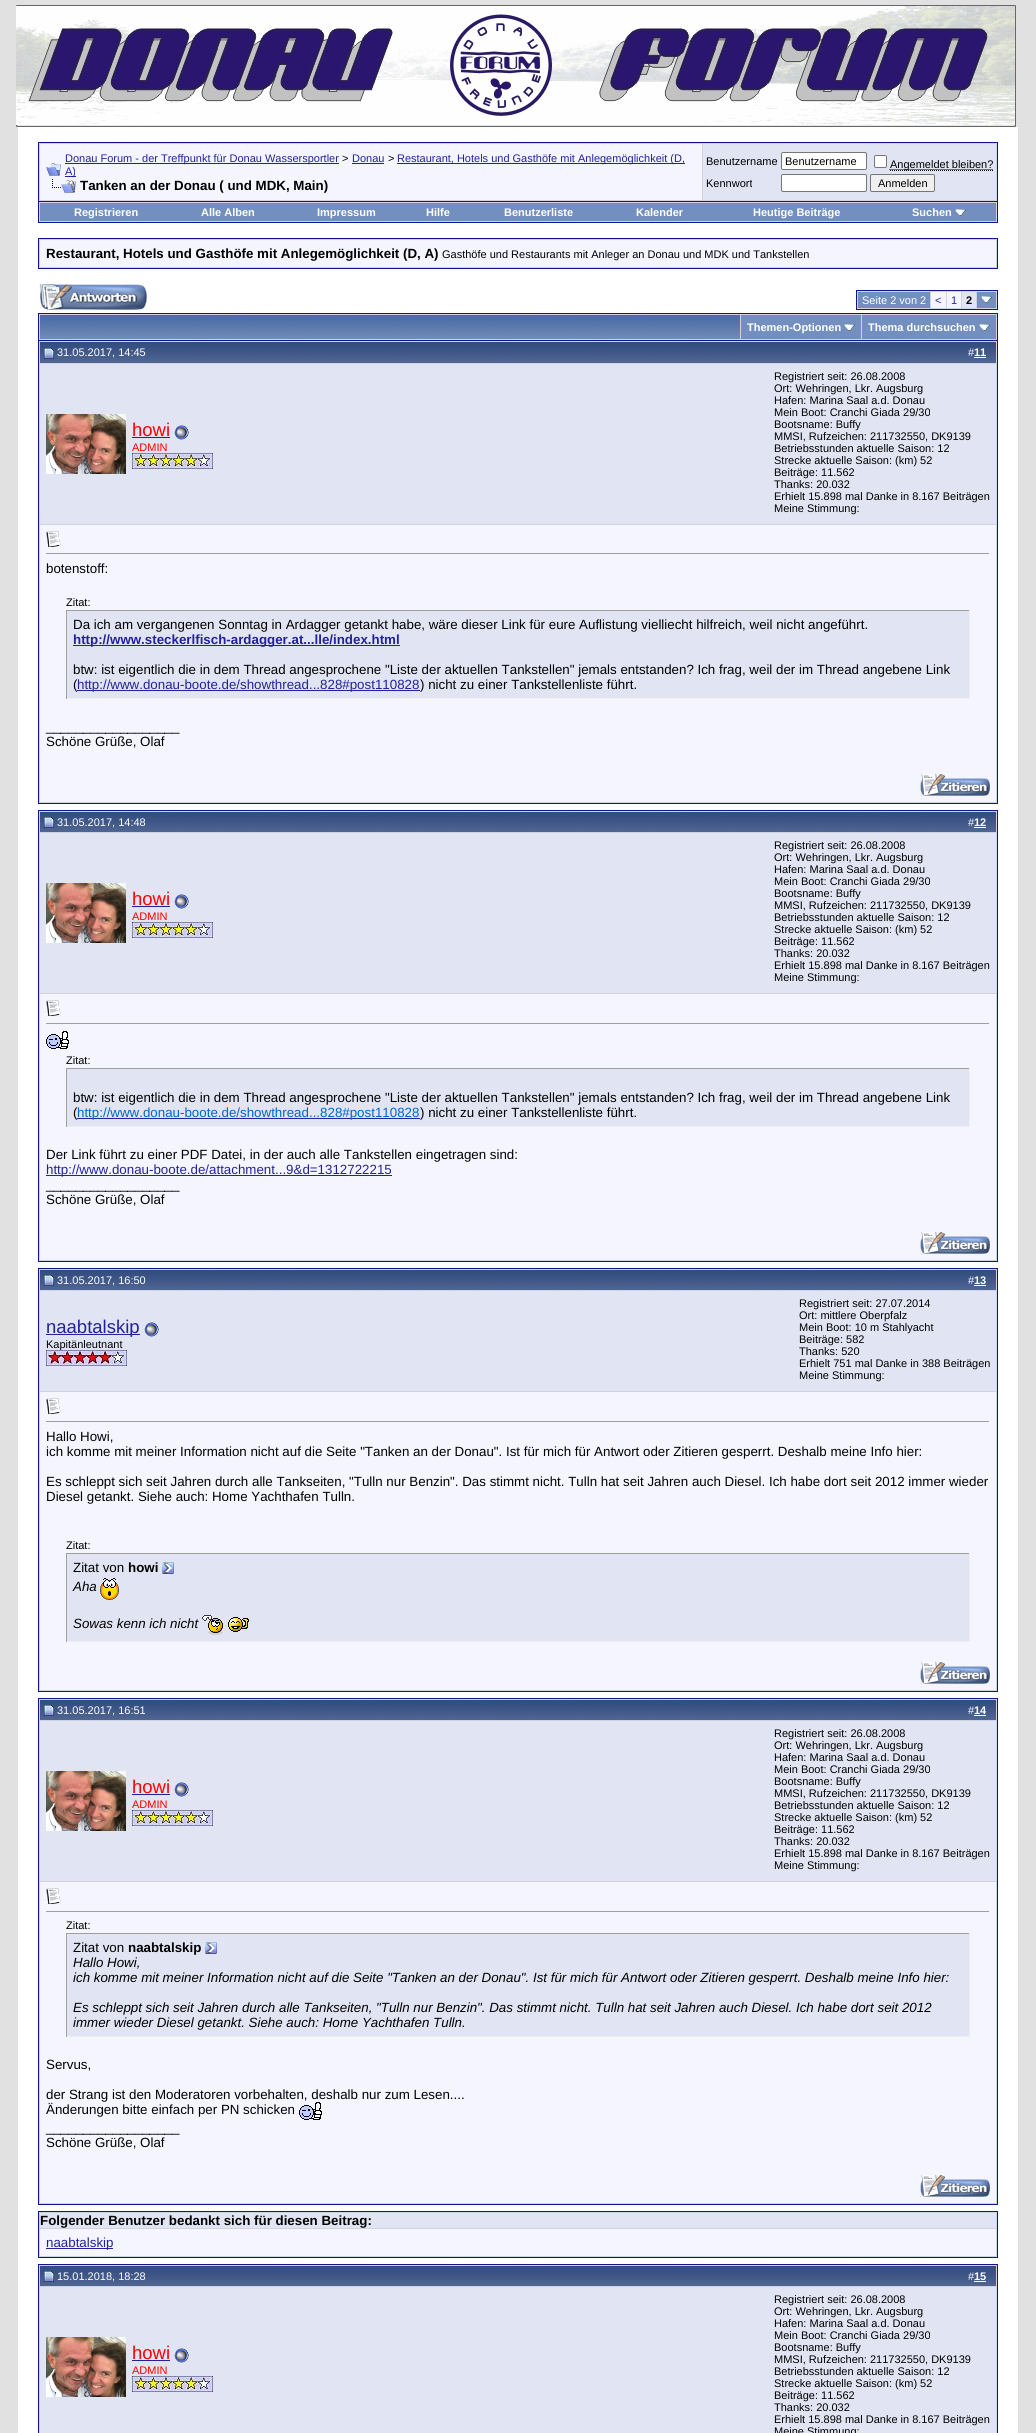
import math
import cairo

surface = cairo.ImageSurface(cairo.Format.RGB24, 1036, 2433)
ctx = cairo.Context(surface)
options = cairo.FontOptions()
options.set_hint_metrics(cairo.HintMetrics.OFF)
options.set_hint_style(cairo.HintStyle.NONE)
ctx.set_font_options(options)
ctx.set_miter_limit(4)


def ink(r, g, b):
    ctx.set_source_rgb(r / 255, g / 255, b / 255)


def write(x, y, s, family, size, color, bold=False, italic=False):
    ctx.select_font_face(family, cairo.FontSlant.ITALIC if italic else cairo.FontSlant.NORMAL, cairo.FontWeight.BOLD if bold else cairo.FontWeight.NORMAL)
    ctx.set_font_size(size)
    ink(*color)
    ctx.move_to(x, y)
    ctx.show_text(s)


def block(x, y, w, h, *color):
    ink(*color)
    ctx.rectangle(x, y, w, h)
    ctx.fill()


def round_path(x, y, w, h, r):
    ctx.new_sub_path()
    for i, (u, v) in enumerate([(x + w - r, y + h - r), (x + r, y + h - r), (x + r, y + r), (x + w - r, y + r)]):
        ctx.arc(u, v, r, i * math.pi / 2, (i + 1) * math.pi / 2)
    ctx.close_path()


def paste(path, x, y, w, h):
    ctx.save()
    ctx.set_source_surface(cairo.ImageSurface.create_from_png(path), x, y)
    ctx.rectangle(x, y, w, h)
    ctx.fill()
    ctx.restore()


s1 = dict(family="Liberation Sans", size=11, color=(34, 34, 156))
s2 = dict(family="Liberation Sans", size=11, color=(0, 0, 0))
s3 = dict(family="Liberation Sans", size=13.33, color=(0, 0, 0), bold=True)
s4 = dict(family="Liberation Sans", size=11, color=(255, 255, 255), bold=True)
s5 = dict(family="Liberation Sans", size=11, color=(255, 255, 255))
s6 = dict(family="Liberation Sans", size=11, color=(0, 0, 0), bold=True)
s7 = dict(family="Liberation Sans", size=18.5, color=(255, 0, 0))
s8 = dict(family="Liberation Sans", size=11, color=(255, 0, 0))
s9 = dict(family="Liberation Sans", size=13.33, color=(0, 0, 0))
s10 = dict(family="Liberation Sans", size=13.33, color=(34, 34, 156), bold=True)
s11 = dict(family="Liberation Sans", size=13.33, color=(34, 34, 156))
s12 = dict(family="Liberation Sans", size=13.33, color=(0, 102, 204))
s13 = dict(family="Liberation Sans", size=18.5, color=(34, 34, 156))
s14 = dict(family="Liberation Sans", size=13.33, color=(0, 0, 0), italic=True)

ink(225, 225, 226)
ctx.paint()
paste("pic1.png", 16, 5, 1000, 122)
block(18, 127, 1000, 2306, 255, 255, 255)
ink(209, 209, 225)
ctx.rectangle(38.5, 142.5, 959, 59)
ctx.fill_preserve()
ink(11, 25, 140)
ctx.set_line_width(1)
ctx.stroke()
block(40, 144, 662, 56, 245, 245, 255)
paste("pic2.png", 46, 163, 15, 13)
block(65, 163, 274, 1, 34, 34, 156)
write(65, 162, "Donau Forum - der Treffpunkt für Donau Wassersportler", **s1)
write(342, 162, ">", **s2)
write(352, 162, "Donau", **s1)
block(352, 163, 32, 1, 34, 34, 156)
write(388, 162, ">", **s2)
block(397, 163, 288, 1, 34, 34, 156)
write(397, 162, "Restaurant, Hotels und Gasthöfe mit Anlegemöglichkeit (D,", **s1)
block(65, 176, 11, 1, 34, 34, 156)
write(65, 175, "A)", **s1)
paste("pic3.png", 52, 179, 24, 14)
write(80, 190, "Tanken an der Donau ( und MDK, Main)", **s3)
block(703, 144, 293, 56, 225, 228, 242)
write(706, 165, "Benutzername", **s2)
ink(255, 255, 255)
round_path(781.5, 152.5, 85, 17, 1.5)
ctx.fill_preserve()
ink(118, 118, 118)
ctx.stroke()
write(785, 165, "Benutzername", **s2)
ink(255, 255, 255)
round_path(874.5, 155.5, 12, 12, 1.5)
ctx.fill_preserve()
ink(118, 118, 118)
ctx.stroke()
ctx.new_path()
ctx.move_to(890, 170.5)
ctx.line_to(993, 170.5)
ink(0, 0, 0)
ctx.set_dash([1, 1])
ctx.stroke()
ctx.new_path()
ctx.move_to(889.5, 169.5)
ctx.line_to(993, 169.5)
ctx.stroke()
write(890, 168, "Angemeldet bleiben?", **s2)
write(706, 187, "Kennwort", **s2)
ink(255, 255, 255)
round_path(781.5, 174.5, 85, 17, 1.5)
ctx.fill_preserve()
ink(118, 118, 118)
ctx.set_dash([])
ctx.stroke()
ink(239, 239, 239)
round_path(870.5, 174.5, 64, 17, 1.5)
ctx.fill_preserve()
ink(118, 118, 118)
ctx.stroke()
write(878, 187, "Anmelden", **s2)
block(39, 202, 958, 20, 209, 209, 225)
block(997, 202, 1, 21, 11, 25, 140)
block(38, 222, 960, 1, 11, 25, 140)
block(38, 202, 1, 21, 11, 25, 140)
block(40, 203, 956, 18, 115, 143, 191)
write(74, 216, "Registrieren", **s4)
write(201, 216, "Alle Alben", **s4)
write(317, 216, "Impressum", **s4)
write(426, 216, "Hilfe", **s4)
write(504, 216, "Benutzerliste", **s4)
write(636, 216, "Kalender", **s4)
write(753, 216, "Heutige Beiträge", **s4)
write(912, 216, "Suchen", **s4)
paste("pic4.png", 955, 209, 11, 7)
ink(209, 209, 225)
ctx.rectangle(38.5, 238.5, 959, 30)
ctx.fill_preserve()
ink(11, 25, 140)
ctx.stroke()
block(40, 240, 956, 27, 245, 245, 255)
write(46, 258, "Restaurant, Hotels und Gasthöfe mit Anlegemöglichkeit (D, A)", **s3)
write(442, 258, "Gasthöfe und Restaurants mit Anleger an Donau und MDK und Tankstellen", **s2)
paste("pic5.png", 39, 284, 108, 26)
ink(209, 209, 225)
ctx.rectangle(856.5, 290.5, 141, 19)
ctx.fill_preserve()
ink(11, 25, 140)
ctx.stroke()
block(858, 292, 72, 16, 115, 143, 191)
write(862, 304, "Seite 2 von 2", **s5)
block(931, 292, 15, 16, 245, 245, 255)
write(935, 304, "<", **s1)
block(947, 292, 14, 16, 245, 245, 255)
write(951, 304, "1", **s1)
block(962, 292, 14, 16, 225, 228, 242)
write(966, 304, "2", **s6)
block(977, 292, 19, 16, 115, 143, 191)
paste("pic4.png", 981, 296, 11, 7)
block(39, 314, 958, 26, 209, 209, 225)
block(38, 313, 960, 1, 11, 25, 140)
block(997, 313, 1, 27, 11, 25, 140)
block(38, 313, 1, 27, 11, 25, 140)
paste("pic6.png", 40, 315, 700, 24)
block(741, 315, 120, 24, 115, 143, 191)
write(747, 331, "Themen-Optionen", **s4)
paste("pic4.png", 844, 324, 11, 7)
block(862, 315, 134, 24, 115, 143, 191)
write(868, 331, "Thema durchsuchen", **s4)
paste("pic4.png", 979, 324, 11, 7)
ink(209, 209, 225)
ctx.rectangle(38.5, 340.5, 959, 463)
ctx.fill_preserve()
ink(11, 25, 140)
ctx.stroke()
paste("pic7.png", 40, 342, 956, 21)
paste("pic8.png", 44, 348, 10, 11)
write(57, 356, "31.05.2017, 14:45", **s5)
write(968, 356, "#", **s5)
write(974, 356, "11", **s4)
block(974, 357, 12, 1, 255, 255, 255)
block(40, 364, 956, 160, 225, 228, 242)
paste("pic9.png", 46, 414, 80, 60)
write(132, 436, "howi", **s7)
block(132, 437, 38, 1, 34, 34, 156)
paste("pic10.png", 174, 425, 15, 15)
write(132, 451, "ADMIN", **s8)
paste("pic11.png", 132, 453, 81, 16)
write(774, 380, "Registriert seit: 26.08.2008", **s2)
write(774, 392, "Ort: Wehringen, Lkr. Augsburg", **s2)
write(774, 404, "Hafen: Marina Saal a.d. Donau", **s2)
write(774, 416, "Mein Boot: Cranchi Giada 29/30", **s2)
write(774, 428, "Bootsname: Buffy", **s2)
write(774, 440, "MMSI, Rufzeichen: 211732550, DK9139", **s2)
write(774, 452, "Betriebsstunden aktuelle Saison: 12", **s2)
write(774, 464, "Strecke aktuelle Saison: (km) 52", **s2)
write(774, 476, "Beiträge: 11.562", **s2)
write(774, 488, "Thanks: 20.032", **s2)
write(774, 500, "Erhielt 15.898 mal Danke in 8.167 Beiträgen", **s2)
write(774, 512, "Meine Stimmung:", **s2)
block(40, 525, 956, 277, 245, 245, 255)
paste("pic12.png", 46, 531, 15, 16)
block(46, 553, 944, 1, 159, 159, 159)
block(989, 553, 1, 1, 238, 238, 238)
write(46, 573, "botenstoff:", **s9)
write(66, 606, "Zitat:", **s2)
block(67, 611, 902, 87, 225, 228, 242)
block(66, 610, 904, 1, 159, 159, 159)
block(969, 610, 1, 89, 238, 238, 238)
block(66, 698, 904, 1, 238, 238, 238)
block(66, 610, 1, 89, 159, 159, 159)
write(73, 629, "Da ich am vergangenen Sonntag in Ardagger getankt habe, wäre dieser Link für eure Auflistung vielliecht hilfreich, weil nicht angeführt.", **s9)
block(73, 645, 327, 1, 34, 34, 156)
write(73, 644, "http://www.steckerlfisch-ardagger.at...lle/index.html", **s10)
write(73, 674, "btw: ist eigentlich die in dem Thread angesprochene \"Liste der aktuellen Tankstellen\" jemals entstanden? Ich frag, weil der im Thread angebene Link", **s9)
write(73, 689, "(", **s9)
block(77, 690, 343, 1, 34, 34, 156)
write(77, 689, "http://www.donau-boote.de/showthread...828#post110828", **s11)
write(420, 689, ") nicht zu einer Tankstellenliste führt.", **s9)
write(46, 731, "__________________", **s9)
write(46, 746, "Schöne Grüße, Olaf", **s9)
paste("pic13.png", 920, 774, 70, 22)
ink(209, 209, 225)
ctx.rectangle(38.5, 810.5, 959, 451)
ctx.fill_preserve()
ink(11, 25, 140)
ctx.stroke()
paste("pic14.png", 40, 812, 956, 20)
paste("pic15.png", 44, 817, 10, 11)
write(57, 826, "31.05.2017, 14:48", **s5)
write(968, 826, "#", **s5)
write(974, 826, "12", **s4)
block(974, 827, 12, 1, 255, 255, 255)
block(40, 833, 956, 160, 225, 228, 242)
paste("pic9.png", 46, 883, 80, 60)
write(132, 905, "howi", **s7)
block(132, 906, 38, 1, 34, 34, 156)
paste("pic10.png", 174, 894, 15, 15)
write(132, 920, "ADMIN", **s8)
paste("pic11.png", 132, 922, 81, 16)
write(774, 849, "Registriert seit: 26.08.2008", **s2)
write(774, 861, "Ort: Wehringen, Lkr. Augsburg", **s2)
write(774, 873, "Hafen: Marina Saal a.d. Donau", **s2)
write(774, 885, "Mein Boot: Cranchi Giada 29/30", **s2)
write(774, 897, "Bootsname: Buffy", **s2)
write(774, 909, "MMSI, Rufzeichen: 211732550, DK9139", **s2)
write(774, 921, "Betriebsstunden aktuelle Saison: 12", **s2)
write(774, 933, "Strecke aktuelle Saison: (km) 52", **s2)
write(774, 945, "Beiträge: 11.562", **s2)
write(774, 957, "Thanks: 20.032", **s2)
write(774, 969, "Erhielt 15.898 mal Danke in 8.167 Beiträgen", **s2)
write(774, 981, "Meine Stimmung:", **s2)
block(40, 994, 956, 266, 245, 245, 255)
paste("pic12.png", 46, 1000, 15, 16)
block(46, 1023, 944, 1, 159, 159, 159)
block(989, 1023, 1, 1, 238, 238, 238)
paste("pic16.png", 46, 1031, 23, 18)
write(66, 1064, "Zitat:", **s2)
block(67, 1069, 902, 57, 225, 228, 242)
block(66, 1068, 904, 1, 159, 159, 159)
block(969, 1068, 1, 59, 238, 238, 238)
block(66, 1126, 904, 1, 238, 238, 238)
block(66, 1068, 1, 59, 159, 159, 159)
write(73, 1102, "btw: ist eigentlich die in dem Thread angesprochene \"Liste der aktuellen Tankstellen\" jemals entstanden? Ich frag, weil der im Thread angebene Link", **s9)
write(73, 1117, "(", **s9)
block(77, 1118, 343, 1, 34, 34, 156)
write(77, 1117, "http://www.donau-boote.de/showthread...828#post110828", **s12)
write(420, 1117, ") nicht zu einer Tankstellenliste führt.", **s9)
write(46, 1159, "Der Link führt zu einer PDF Datei, in der auch alle Tankstellen eingetragen sind:", **s9)
block(46, 1175, 346, 1, 34, 34, 156)
write(46, 1174, "http://www.donau-boote.de/attachment...9&d=1312722215", **s11)
write(46, 1189, "__________________", **s9)
write(46, 1204, "Schöne Grüße, Olaf", **s9)
paste("pic13.png", 920, 1232, 70, 22)
ink(209, 209, 225)
ctx.rectangle(38.5, 1268.5, 959, 423)
ctx.fill_preserve()
ink(11, 25, 140)
ctx.stroke()
paste("pic14.png", 40, 1270, 956, 20)
paste("pic15.png", 44, 1275, 10, 11)
write(57, 1284, "31.05.2017, 16:50", **s5)
write(968, 1284, "#", **s5)
write(974, 1284, "13", **s4)
block(974, 1285, 12, 1, 255, 255, 255)
block(40, 1291, 956, 100, 225, 228, 242)
block(46, 1334, 94, 1, 34, 34, 156)
write(46, 1333, "naabtalskip", **s13)
paste("pic10.png", 144, 1322, 15, 15)
write(46, 1348, "Kapitänleutnant", **s2)
paste("pic17.png", 46, 1350, 81, 16)
write(799, 1307, "Registriert seit: 27.07.2014", **s2)
write(799, 1319, "Ort: mittlere Oberpfalz", **s2)
write(799, 1331, "Mein Boot: 10 m Stahlyacht", **s2)
write(799, 1343, "Beiträge: 582", **s2)
write(799, 1355, "Thanks: 520", **s2)
write(799, 1367, "Erhielt 751 mal Danke in 388 Beiträgen", **s2)
write(799, 1379, "Meine Stimmung:", **s2)
block(40, 1392, 956, 298, 245, 245, 255)
paste("pic12.png", 46, 1398, 15, 16)
block(46, 1421, 944, 1, 159, 159, 159)
block(989, 1421, 1, 1, 238, 238, 238)
write(46, 1441, "Hallo Howi,", **s9)
write(46, 1456, "ich komme mit meiner Information nicht auf die Seite \"Tanken an der Donau\". Ist für mich für Antwort oder Zitieren gesperrt. Deshalb meine Info hier:", **s9)
write(46, 1486, "Es schleppt sich seit Jahren durch alle Tankseiten, \"Tulln nur Benzin\". Das stimmt nicht. Tulln hat seit Jahren auch Diesel. Ich habe dort seit 2012 immer wieder", **s9)
write(46, 1501, "Diesel getankt. Siehe auch: Home Yachthafen Tulln.", **s9)
write(66, 1549, "Zitat:", **s2)
block(67, 1554, 902, 87, 225, 228, 242)
block(66, 1553, 904, 1, 159, 159, 159)
block(969, 1553, 1, 89, 238, 238, 238)
block(66, 1641, 904, 1, 238, 238, 238)
block(66, 1553, 1, 89, 159, 159, 159)
write(73, 1572, "Zitat von", **s9)
write(128, 1572, "howi", **s3)
paste("pic18.png", 162, 1562, 12, 12)
write(73, 1591, "Aha", **s14)
paste("pic19.png", 100, 1578, 19, 22)
write(73, 1628, "Sowas kenn ich nicht", **s14)
paste("pic20.png", 202, 1615, 21, 20)
paste("pic21.png", 228, 1617, 21, 15)
paste("pic13.png", 920, 1662, 70, 22)
ink(209, 209, 225)
ctx.rectangle(38.5, 1698.5, 959, 506)
ctx.fill_preserve()
ink(11, 25, 140)
ctx.stroke()
paste("pic14.png", 40, 1700, 956, 20)
paste("pic15.png", 44, 1705, 10, 11)
write(57, 1714, "31.05.2017, 16:51", **s5)
write(968, 1714, "#", **s5)
write(974, 1714, "14", **s4)
block(974, 1715, 12, 1, 255, 255, 255)
block(40, 1721, 956, 160, 225, 228, 242)
paste("pic9.png", 46, 1771, 80, 60)
write(132, 1793, "howi", **s7)
block(132, 1794, 38, 1, 34, 34, 156)
paste("pic10.png", 174, 1782, 15, 15)
write(132, 1808, "ADMIN", **s8)
paste("pic11.png", 132, 1810, 81, 16)
write(774, 1737, "Registriert seit: 26.08.2008", **s2)
write(774, 1749, "Ort: Wehringen, Lkr. Augsburg", **s2)
write(774, 1761, "Hafen: Marina Saal a.d. Donau", **s2)
write(774, 1773, "Mein Boot: Cranchi Giada 29/30", **s2)
write(774, 1785, "Bootsname: Buffy", **s2)
write(774, 1797, "MMSI, Rufzeichen: 211732550, DK9139", **s2)
write(774, 1809, "Betriebsstunden aktuelle Saison: 12", **s2)
write(774, 1821, "Strecke aktuelle Saison: (km) 52", **s2)
write(774, 1833, "Beiträge: 11.562", **s2)
write(774, 1845, "Thanks: 20.032", **s2)
write(774, 1857, "Erhielt 15.898 mal Danke in 8.167 Beiträgen", **s2)
write(774, 1869, "Meine Stimmung:", **s2)
block(40, 1882, 956, 321, 245, 245, 255)
paste("pic12.png", 46, 1888, 15, 16)
block(46, 1911, 944, 1, 159, 159, 159)
block(989, 1911, 1, 1, 238, 238, 238)
write(66, 1929, "Zitat:", **s2)
block(67, 1934, 902, 102, 225, 228, 242)
block(66, 1933, 904, 1, 159, 159, 159)
block(969, 1933, 1, 104, 238, 238, 238)
block(66, 2036, 904, 1, 238, 238, 238)
block(66, 1933, 1, 104, 159, 159, 159)
write(73, 1952, "Zitat von", **s9)
write(128, 1952, "naabtalskip", **s3)
paste("pic18.png", 205, 1942, 12, 12)
write(73, 1967, "Hallo Howi,", **s14)
write(73, 1982, "ich komme mit meiner Information nicht auf die Seite \"Tanken an der Donau\". Ist für mich für Antwort oder Zitieren gesperrt. Deshalb meine Info hier:", **s14)
write(73, 2012, "Es schleppt sich seit Jahren durch alle Tankseiten, \"Tulln nur Benzin\". Das stimmt nicht. Tulln hat seit Jahren auch Diesel. Ich habe dort seit 2012", **s14)
write(73, 2027, "immer wieder Diesel getankt. Siehe auch: Home Yachthafen Tulln.", **s14)
write(46, 2069, "Servus,", **s9)
write(46, 2099, "der Strang ist den Moderatoren vorbehalten, deshalb nur zum Lesen....", **s9)
write(46, 2114, "Änderungen bitte einfach per PN schicken", **s9)
paste("pic16.png", 299, 2102, 23, 18)
write(46, 2132, "__________________", **s9)
write(46, 2147, "Schöne Grüße, Olaf", **s9)
paste("pic13.png", 920, 2175, 70, 22)
ink(209, 209, 225)
ctx.rectangle(38.5, 2211.5, 959, 46)
ctx.fill_preserve()
ink(11, 25, 140)
ctx.stroke()
block(40, 2213, 956, 15, 225, 228, 242)
write(40, 2225, "Folgender Benutzer bedankt sich für diesen Beitrag:", **s3)
block(40, 2229, 956, 27, 245, 245, 255)
block(46, 2248, 67, 1, 34, 34, 156)
write(46, 2247, "naabtalskip", **s11)
ink(209, 209, 225)
ctx.rectangle(38.5, 2264.5, 959, 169)
ctx.fill_preserve()
ink(11, 25, 140)
ctx.stroke()
paste("pic14.png", 40, 2266, 956, 20)
paste("pic15.png", 44, 2271, 10, 11)
write(57, 2280, "15.01.2018, 18:28", **s5)
write(968, 2280, "#", **s5)
write(974, 2280, "15", **s4)
block(974, 2281, 12, 1, 255, 255, 255)
block(40, 2287, 956, 146, 225, 228, 242)
paste("pic9.png", 46, 2337, 80, 60)
write(132, 2359, "howi", **s7)
block(132, 2360, 38, 1, 34, 34, 156)
paste("pic10.png", 174, 2348, 15, 15)
write(132, 2374, "ADMIN", **s8)
paste("pic11.png", 132, 2376, 81, 16)
write(774, 2303, "Registriert seit: 26.08.2008", **s2)
write(774, 2315, "Ort: Wehringen, Lkr. Augsburg", **s2)
write(774, 2327, "Hafen: Marina Saal a.d. Donau", **s2)
write(774, 2339, "Mein Boot: Cranchi Giada 29/30", **s2)
write(774, 2351, "Bootsname: Buffy", **s2)
write(774, 2363, "MMSI, Rufzeichen: 211732550, DK9139", **s2)
write(774, 2375, "Betriebsstunden aktuelle Saison: 12", **s2)
write(774, 2387, "Strecke aktuelle Saison: (km) 52", **s2)
write(774, 2399, "Beiträge: 11.562", **s2)
write(774, 2411, "Thanks: 20.032", **s2)
write(774, 2423, "Erhielt 15.898 mal Danke in 8.167 Beiträgen", **s2)
write(774, 2435, "Meine Stimmung:", **s2)
surface.write_to_png("screenshot.png")
